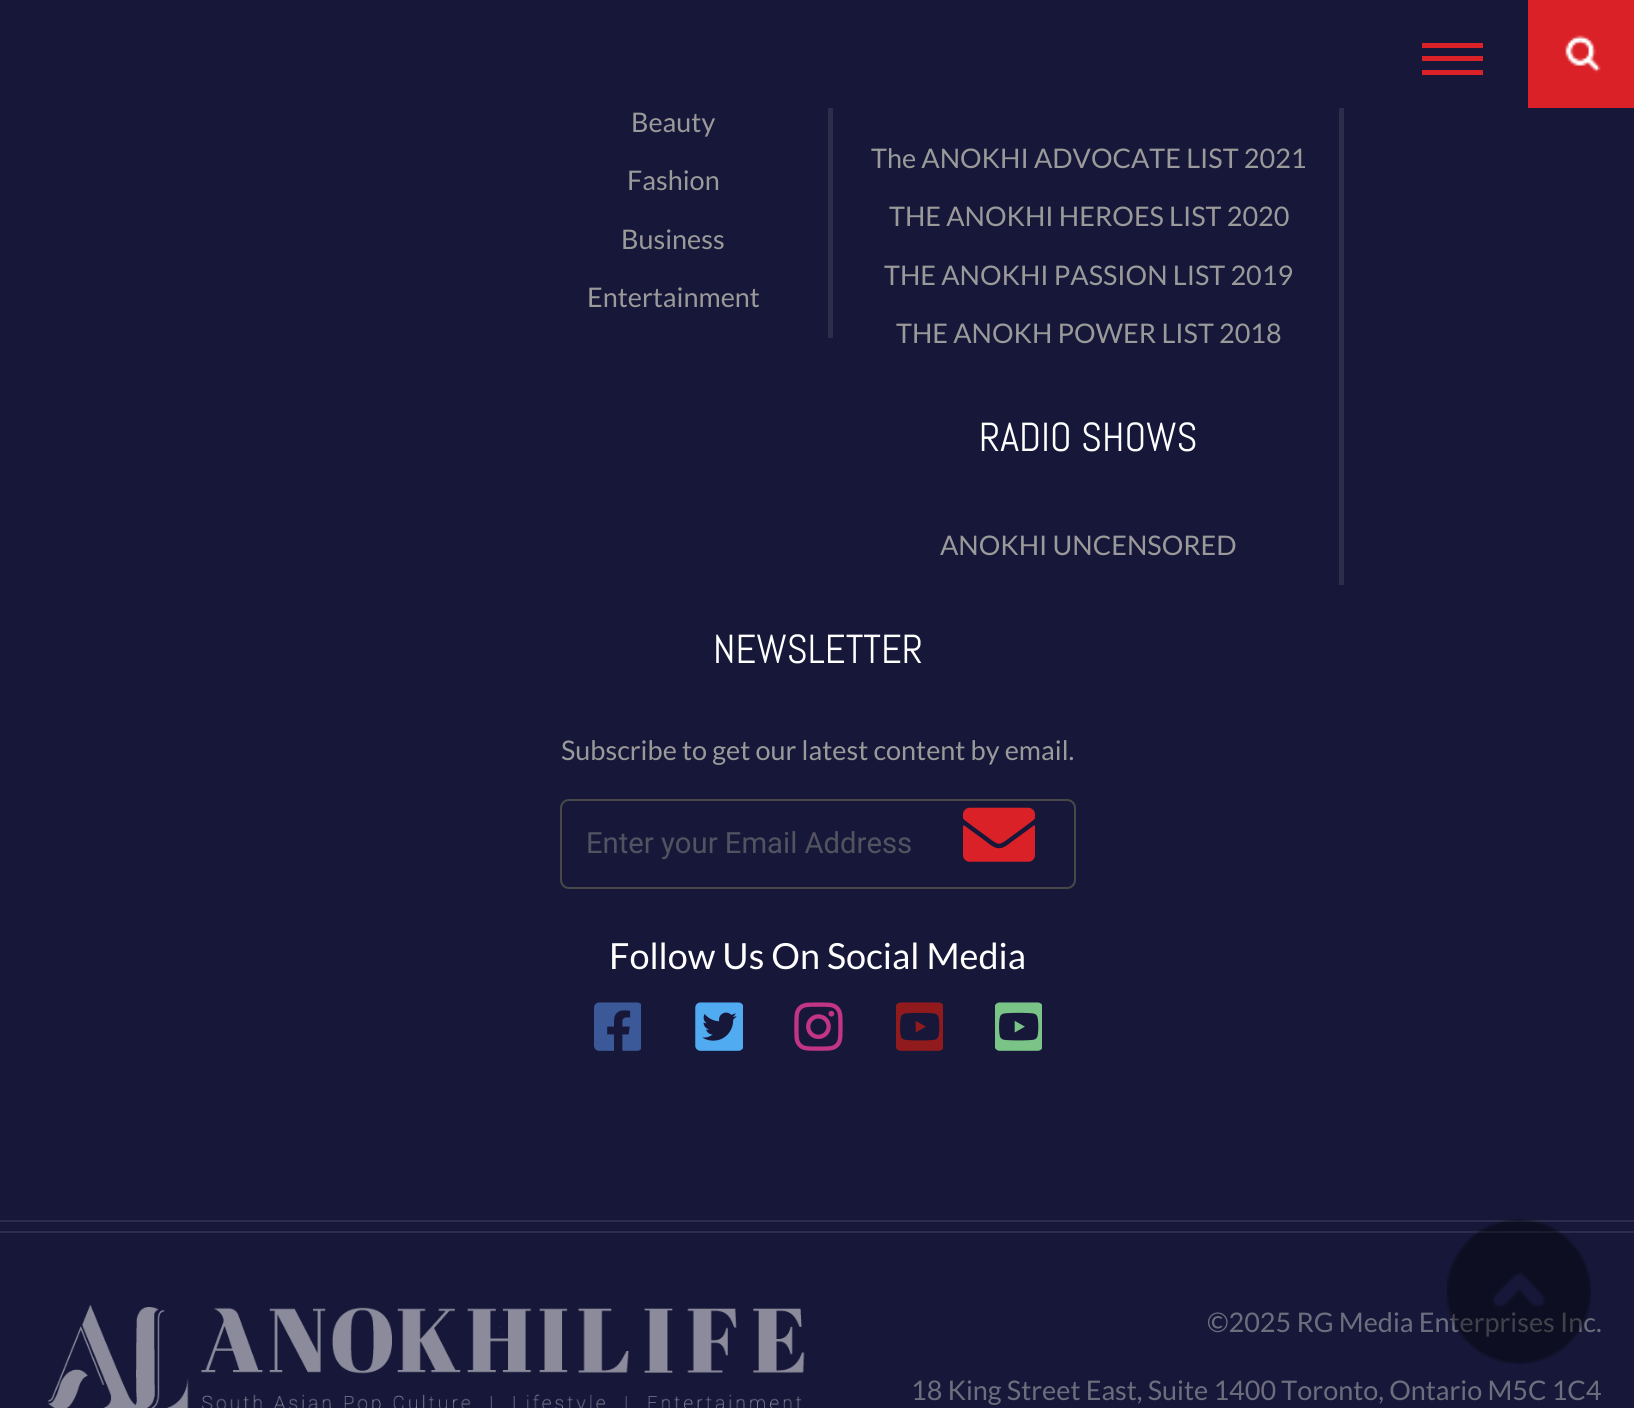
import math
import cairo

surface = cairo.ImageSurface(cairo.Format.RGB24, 1634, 1408)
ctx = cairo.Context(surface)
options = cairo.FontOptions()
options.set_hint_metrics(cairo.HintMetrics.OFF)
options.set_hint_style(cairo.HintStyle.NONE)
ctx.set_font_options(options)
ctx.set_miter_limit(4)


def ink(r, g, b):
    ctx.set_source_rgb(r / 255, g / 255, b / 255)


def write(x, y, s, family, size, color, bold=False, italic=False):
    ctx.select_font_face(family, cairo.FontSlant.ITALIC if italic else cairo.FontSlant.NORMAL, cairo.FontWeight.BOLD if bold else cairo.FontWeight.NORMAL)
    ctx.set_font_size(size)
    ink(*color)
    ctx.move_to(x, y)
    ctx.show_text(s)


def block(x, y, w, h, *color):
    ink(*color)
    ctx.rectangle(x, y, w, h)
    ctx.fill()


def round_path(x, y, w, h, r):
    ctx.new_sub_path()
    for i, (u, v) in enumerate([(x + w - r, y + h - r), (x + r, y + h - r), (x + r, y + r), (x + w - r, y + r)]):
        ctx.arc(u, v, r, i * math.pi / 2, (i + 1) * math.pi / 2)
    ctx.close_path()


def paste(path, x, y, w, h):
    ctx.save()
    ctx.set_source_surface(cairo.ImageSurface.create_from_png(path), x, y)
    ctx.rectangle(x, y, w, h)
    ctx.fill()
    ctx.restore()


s1 = dict(family="Lato", size=27, color=(154, 154, 154))
s2 = dict(family="Abel", size=40.5, color=(255, 255, 255))
s3 = dict(family="Roboto", size=29.25, color=(82, 82, 96))
s4 = dict(family="Lato", size=36, color=(255, 255, 255))
s5 = dict(family="Lato", size=27, color=(109, 109, 126))

ink(23, 23, 57)
ctx.paint()
block(1422, 43, 61, 5, 218, 33, 40)
block(1422, 56, 61, 5, 218, 33, 40)
block(1422, 70, 61, 5, 218, 33, 40)
block(1528, 0, 106, 108, 218, 33, 40)
paste("pic1.png", 1565, 35, 36, 38)
block(0, 1220, 1634, 2, 45, 45, 75)
block(828, 108, 5, 230, 45, 45, 75)
write(631, 132, "Beauty", **s1)
write(627, 190, "Fashion", **s1)
write(621, 249, "Business", **s1)
write(587, 307, "Entertainment", **s1)
block(1339, 108, 5, 477, 45, 45, 75)
write(871, 168, "The ANOKHI ADVOCATE LIST 2021", **s1)
write(889, 226, "THE ANOKHI HEROES LIST 2020", **s1)
write(884, 285, "THE ANOKHI PASSION LIST 2019", **s1)
write(896, 343, "THE ANOKH POWER LIST 2018", **s1)
write(979, 451, "RADIO SHOWS", **s2)
write(940, 555, "ANOKHI UNCENSORED", **s1)
write(713, 663, "NEWSLETTER", **s2)
write(561, 760, "Subscribe to get our latest content by email.", **s1)
round_path(561, 800, 514, 88, 8)
ink(72, 72, 72)
ctx.stroke()
write(586, 853, "Enter your Email Address", **s3)
paste("pic2.png", 963, 807, 72, 55)
write(609, 969, "Follow Us On Social Media", **s4)
paste("pic3.png", 594, 1002, 47, 49)
paste("pic4.png", 695, 1002, 48, 49)
paste("pic5.png", 794, 1002, 49, 49)
paste("pic6.png", 896, 1002, 47, 49)
paste("pic7.png", 995, 1002, 47, 49)
block(0, 1231, 1634, 2, 45, 45, 75)
paste("pic8.png", 47, 1305, 758, 103)
write(1207, 1332, "©2025 RG Media Enterprises Inc.", **s5)
write(911, 1400, "18 King Street East, Suite 1400 Toronto, Ontario M5C 1C4", **s5)
paste("pic9.png", 1446, 1219, 145, 145)
surface.write_to_png("screenshot.png")
